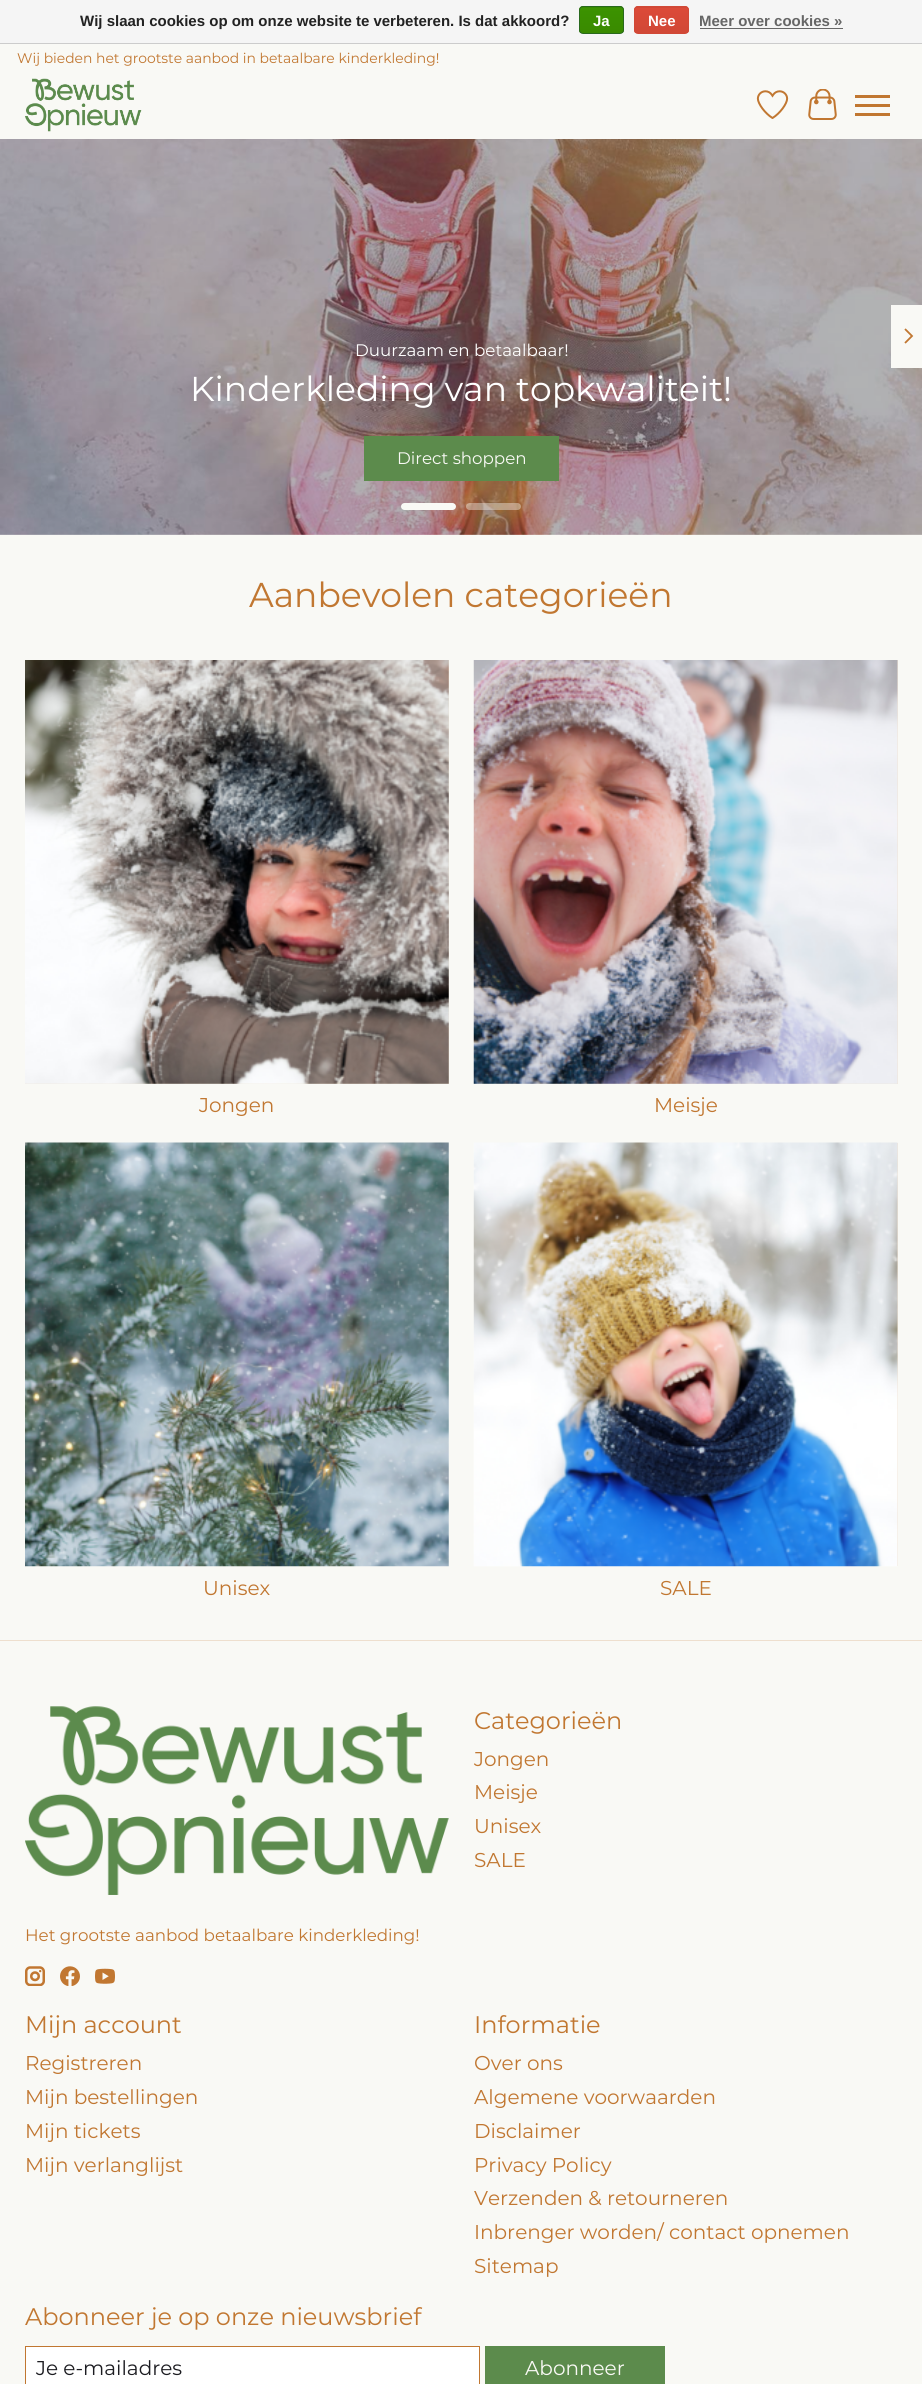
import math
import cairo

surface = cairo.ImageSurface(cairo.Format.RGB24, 922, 2384)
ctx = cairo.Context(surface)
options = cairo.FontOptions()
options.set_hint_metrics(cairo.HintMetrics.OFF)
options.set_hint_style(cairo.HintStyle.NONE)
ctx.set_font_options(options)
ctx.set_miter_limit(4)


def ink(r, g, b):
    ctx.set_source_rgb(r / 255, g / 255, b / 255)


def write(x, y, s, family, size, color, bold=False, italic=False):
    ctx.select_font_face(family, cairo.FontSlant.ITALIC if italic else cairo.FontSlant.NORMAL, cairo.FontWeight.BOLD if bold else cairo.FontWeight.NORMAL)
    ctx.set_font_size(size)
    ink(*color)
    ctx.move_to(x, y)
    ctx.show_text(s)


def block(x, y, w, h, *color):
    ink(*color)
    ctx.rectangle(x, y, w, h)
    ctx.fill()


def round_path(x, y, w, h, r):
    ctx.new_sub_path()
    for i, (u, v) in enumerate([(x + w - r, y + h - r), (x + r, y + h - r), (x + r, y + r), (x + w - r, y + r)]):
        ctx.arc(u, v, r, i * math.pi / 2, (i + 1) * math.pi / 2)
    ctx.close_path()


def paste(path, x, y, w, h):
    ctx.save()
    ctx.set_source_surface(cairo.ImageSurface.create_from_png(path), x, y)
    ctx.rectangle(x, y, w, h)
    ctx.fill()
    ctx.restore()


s1 = dict(family="Liberation Sans", size=15, color=(34, 34, 34), bold=True)
s2 = dict(family="Liberation Sans", size=15, color=(255, 255, 255), bold=True)
s3 = dict(family="Liberation Sans", size=15, color=(102, 102, 102), bold=True)
s4 = dict(family="Montserrat", size=13.9, color=(193, 119, 49))
s5 = dict(family="Montserrat", size=16.7, color=(255, 255, 255))
s6 = dict(family="Montserrat", size=34.5, color=(255, 255, 255))
s7 = dict(family="Montserrat", size=16.7, color=(249, 249, 245))
s8 = dict(family="Montserrat", size=34.5, color=(193, 119, 49))
s9 = dict(family="Montserrat", size=20, color=(193, 119, 49))
s10 = dict(family="Montserrat", size=24, color=(193, 119, 49))
s11 = dict(family="Montserrat", size=16.7, color=(193, 119, 49))
s12 = dict(family="Montserrat", size=20, color=(28, 28, 33))
s13 = dict(family="Montserrat", size=20, color=(249, 249, 245))

ink(249, 249, 245)
ctx.paint()
block(0, 0, 922, 43, 245, 245, 245)
block(0, 43, 922, 1, 204, 204, 204)
write(80, 26, "Wij slaan cookies op om onze website te verbeteren. Is dat akkoord?", **s1)
ctx.save()
round_path(579, 6, 45, 28, 4)
ctx.clip()
gradient = cairo.LinearGradient(601, -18, 601, 7.5)
gradient.add_color_stop_rgba(0, 0.235, 0.576, 0, 1)
gradient.add_color_stop_rgba(1, 0.224, 0.541, 0, 1)
ctx.set_source(gradient)
ctx.rectangle(579, 6, 45, 2)
ctx.fill()
gradient = cairo.LinearGradient(601, 7.5, 601, 33)
gradient.add_color_stop_rgba(0, 0.235, 0.576, 0, 1)
gradient.add_color_stop_rgba(1, 0.224, 0.541, 0, 1)
ctx.set_source(gradient)
ctx.rectangle(579, 8, 45, 25)
ctx.fill()
ctx.restore()
round_path(579.5, 6.5, 44, 27, 3.5)
ink(41, 105, 29)
ctx.set_line_width(1)
ctx.stroke()
write(593, 26, "Ja", **s2)
ctx.save()
round_path(634, 6, 55, 28, 4)
ctx.clip()
gradient = cairo.LinearGradient(661, -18, 661, 7.5)
gradient.add_color_stop_rgba(0, 0.863, 0.29, 0.22, 1)
gradient.add_color_stop_rgba(1, 0.82, 0.282, 0.212, 1)
ctx.set_source(gradient)
ctx.rectangle(634, 6, 55, 2)
ctx.fill()
gradient = cairo.LinearGradient(661, 7.5, 661, 33)
gradient.add_color_stop_rgba(0, 0.863, 0.29, 0.22, 1)
gradient.add_color_stop_rgba(1, 0.82, 0.282, 0.212, 1)
ctx.set_source(gradient)
ctx.rectangle(634, 8, 55, 25)
ctx.fill()
ctx.restore()
round_path(634.5, 6.5, 54, 27, 3.5)
ink(209, 72, 54)
ctx.stroke()
write(648, 26, "Nee", **s2)
write(699, 26, "Meer over cookies »", **s3)
block(700, 28, 143, 1, 102, 102, 102)
write(17, 63, "Wij bieden het grootste aanbod in betaalbare kinderkleding!", **s4)
paste("pic1.png", 25, 78, 117, 54)
paste("pic2.png", 756, 90, 33, 29)
paste("pic3.png", 808, 89, 29, 31)
block(855, 104, 35, 3, 193, 119, 49)
block(855, 95, 35, 3, 193, 119, 49)
block(855, 113, 35, 3, 193, 119, 49)
paste("pic4.png", 0, 139, 922, 396)
block(891, 305, 31, 63, 249, 249, 245)
ctx.new_path()
ctx.move_to(905, 343)
ctx.line_to(912, 336)
ctx.line_to(905, 329)
ink(193, 119, 49)
ctx.set_line_width(1.8)
ctx.stroke()
write(355, 356, "Duurzaam en betaalbaar!", **s5)
write(190, 401, "Kinderkleding van topkwaliteit!", **s6)
block(364, 436, 195, 45, 92, 139, 76)
write(397, 464, "Direct shoppen", **s7)
round_path(401, 503, 55, 7, 3.5)
ctx.fill()
ctx.set_source_rgba(0.976, 0.976, 0.961, 0.4)
round_path(466, 503, 55, 7, 3.5)
ctx.fill()
write(249, 607, "Aanbevolen categorieën", **s8)
block(25, 660, 424, 424, 240, 229, 215)
paste("pic5.png", 25, 660, 424, 424)
write(199, 1112, "Jongen", **s9)
block(474, 660, 424, 424, 240, 229, 215)
paste("pic6.png", 473, 660, 425, 424)
write(654, 1112, "Meisje", **s9)
paste("pic7.png", 25, 1142, 424, 425)
write(203, 1595, "Unisex", **s9)
block(897, 1143, 1, 423, 240, 229, 215)
paste("pic8.png", 473, 1142, 425, 425)
write(660, 1595, "SALE", **s9)
block(0, 1640, 922, 1, 238, 223, 206)
write(474, 1729, "Categorieën", **s10)
write(474, 1766, "Jongen", **s9)
write(474, 1799, "Meisje", **s9)
write(474, 1833, "Unisex", **s9)
write(474, 1867, "SALE", **s9)
paste("pic9.png", 25, 1706, 424, 189)
write(25, 1941, "Het grootste aanbod betaalbare kinderkleding!", **s11)
paste("pic10.png", 25, 1966, 20, 20)
paste("pic11.png", 60, 1966, 20, 20)
paste("pic12.png", 95, 1968, 20, 16)
write(25, 2033, "Mijn account", **s10)
write(25, 2070, "Registreren", **s9)
write(25, 2104, "Mijn bestellingen", **s9)
write(25, 2138, "Mijn tickets", **s9)
write(25, 2172, "Mijn verlanglijst", **s9)
write(474, 2033, "Informatie", **s10)
write(474, 2070, "Over ons", **s9)
write(474, 2104, "Algemene voorwaarden", **s9)
write(474, 2138, "Disclaimer", **s9)
write(474, 2172, "Privacy Policy", **s9)
write(474, 2205, "Verzenden & retourneren", **s9)
write(474, 2239, "Inbrenger worden/ contact opnemen", **s9)
write(474, 2273, "Sitemap", **s9)
write(25, 2325, "Abonneer je op onze nieuwsbrief", **s10)
ink(255, 255, 255)
ctx.rectangle(25.5, 2346.5, 454, 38)
ctx.fill_preserve()
ink(193, 119, 49)
ctx.set_line_width(1)
ctx.stroke()
write(36, 2375, "Je e-mailadres", **s12)
block(485, 2346, 180, 38, 92, 139, 76)
write(525, 2375, "Abonneer", **s13)
surface.write_to_png("screenshot.png")
